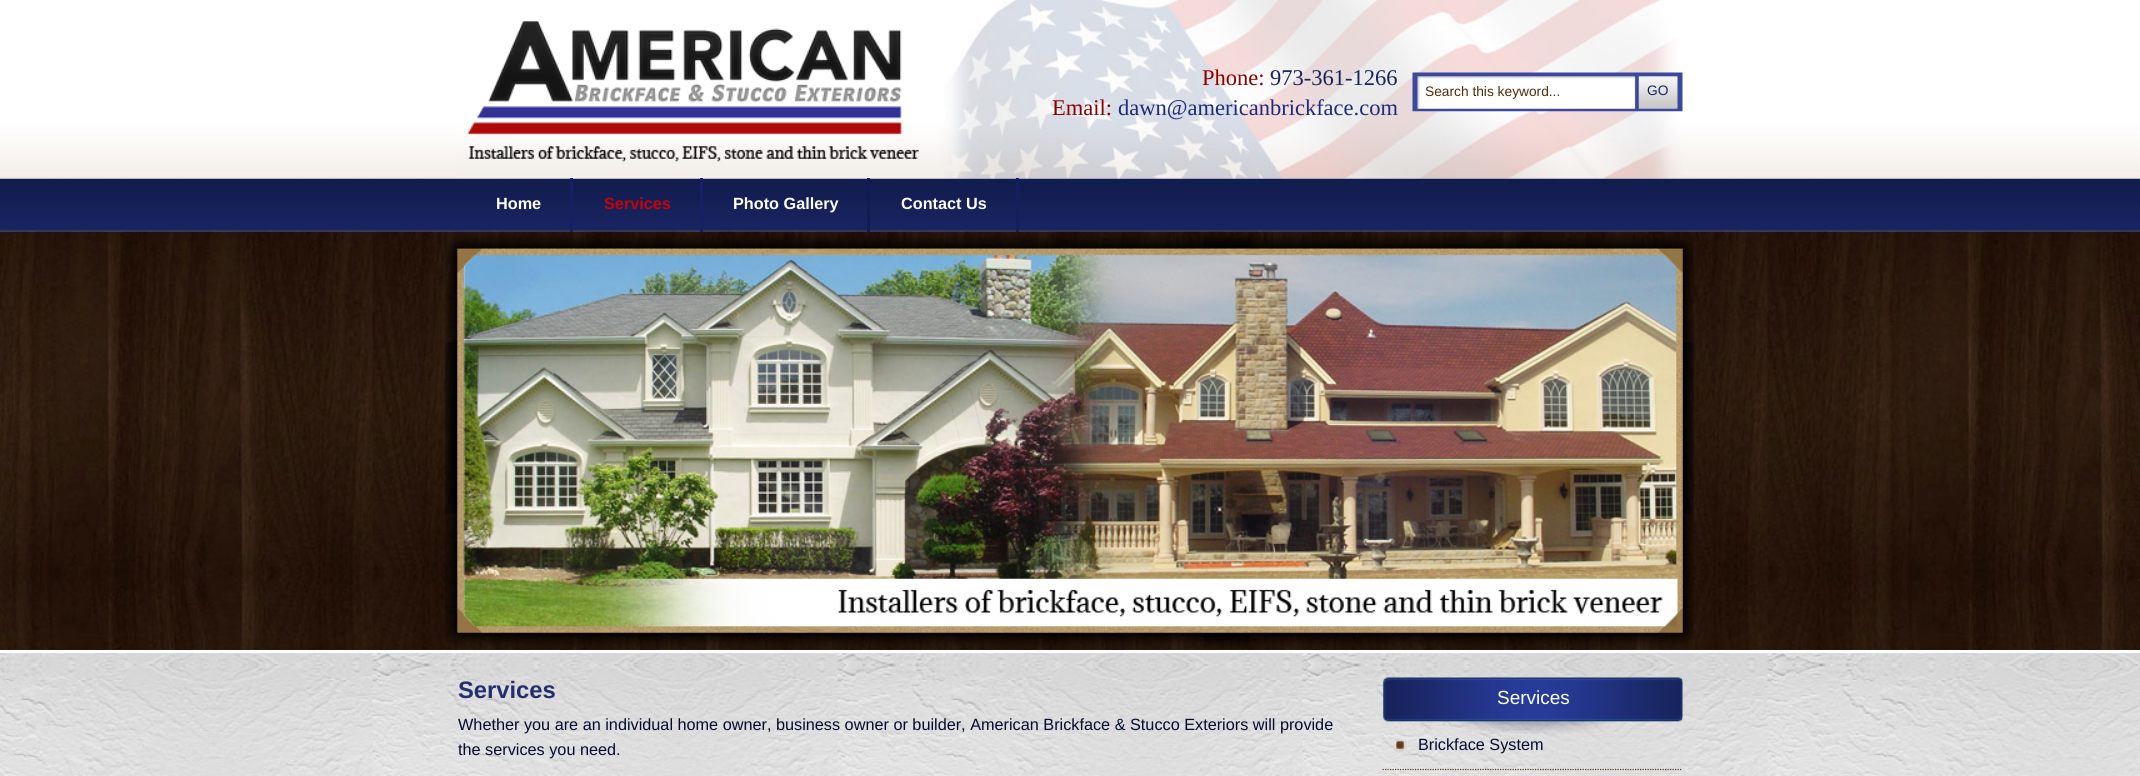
import math
import cairo

surface = cairo.ImageSurface(cairo.Format.RGB24, 2140, 776)
ctx = cairo.Context(surface)
options = cairo.FontOptions()
options.set_hint_metrics(cairo.HintMetrics.OFF)
options.set_hint_style(cairo.HintStyle.NONE)
ctx.set_font_options(options)
ctx.set_miter_limit(4)


def ink(r, g, b):
    ctx.set_source_rgb(r / 255, g / 255, b / 255)


def write(x, y, s, family, size, color, bold=False, italic=False):
    ctx.select_font_face(family, cairo.FontSlant.ITALIC if italic else cairo.FontSlant.NORMAL, cairo.FontWeight.BOLD if bold else cairo.FontWeight.NORMAL)
    ctx.set_font_size(size)
    ink(*color)
    ctx.move_to(x, y)
    ctx.show_text(s)


def block(x, y, w, h, *color):
    ink(*color)
    ctx.rectangle(x, y, w, h)
    ctx.fill()


def paste(path, x, y, w, h):
    ctx.save()
    ctx.set_source_surface(cairo.ImageSurface.create_from_png(path), x, y)
    ctx.rectangle(x, y, w, h)
    ctx.fill()
    ctx.restore()


s1 = dict(family="Liberation Serif", size=22.5, color=(140, 0, 0))
s2 = dict(family="Liberation Serif", size=22.5, color=(24, 35, 92))
s3 = dict(family="Liberation Serif", size=22.5, color=(28, 43, 124))
s4 = dict(family="Liberation Sans", size=13.75, color=(80, 42, 11))
s5 = dict(family="Liberation Sans", size=13.75, color=(24, 35, 92))
s6 = dict(family="Liberation Sans", size=16.25, color=(255, 255, 255), bold=True)
s7 = dict(family="Liberation Sans", size=16.25, color=(196, 3, 6), bold=True)
s8 = dict(family="Liberation Sans", size=23.75, color=(36, 46, 108), bold=True)
s9 = dict(family="Liberation Sans", size=16.25, color=(4, 11, 46))
s10 = dict(family="Liberation Sans", size=19, color=(255, 255, 255))

ink(255, 255, 255)
ctx.paint()
paste("pic1.png", 0, 178, 2140, 598)
paste("pic2.png", 0, 0, 2140, 179)
paste("pic3.png", 458, 0, 1224, 179)
paste("pic4.png", 467, 21, 452, 141)
write(1202, 85, "Phone:", **s1)
write(1270, 85, "973-361-1266", **s2)
write(1052, 115, "Email:", **s1)
write(1118, 115, "dawn@americanbrickface.com", **s3)
paste("pic5.png", 1412, 72, 271, 40)
write(1425, 96, "Search this keyword...", **s4)
write(1647, 95, "GO", **s5)
paste("pic6.png", 0, 178, 2140, 54)
paste("pic7.png", 0, 231, 2140, 419)
paste("pic8.png", 445, 231, 1249, 418)
block(570, 178, 3, 54, 22, 33, 101)
write(496, 209, "Home", **s6)
block(700, 178, 3, 54, 22, 33, 101)
write(604, 209, "Services", **s7)
block(867, 178, 3, 54, 18, 27, 82)
write(733, 209, "Photo Gallery", **s6)
block(1016, 178, 3, 54, 20, 31, 93)
write(901, 209, "Contact Us", **s6)
block(0, 650, 2140, 3, 255, 255, 255)
paste("pic9.png", 457, 248, 1226, 385)
write(458, 698, "Services", **s8)
write(458, 730, "Whether you are an individual home owner, business owner or builder, American Brickface & Stucco Exteriors will provide", **s9)
write(458, 755, "the services you need.", **s9)
paste("pic10.png", 1383, 677, 300, 57)
write(1497, 704, "Services", **s10)
paste("pic11.png", 1396, 741, 10, 10)
ctx.new_path()
ctx.move_to(1382.5, 769.5)
ctx.line_to(1682.5, 769.5)
ink(99, 57, 23)
ctx.set_line_width(1.2)
ctx.set_dash([1.25, 1.25])
ctx.stroke()
write(1418, 750, "Brickface System", **s9)
surface.write_to_png("screenshot.png")
